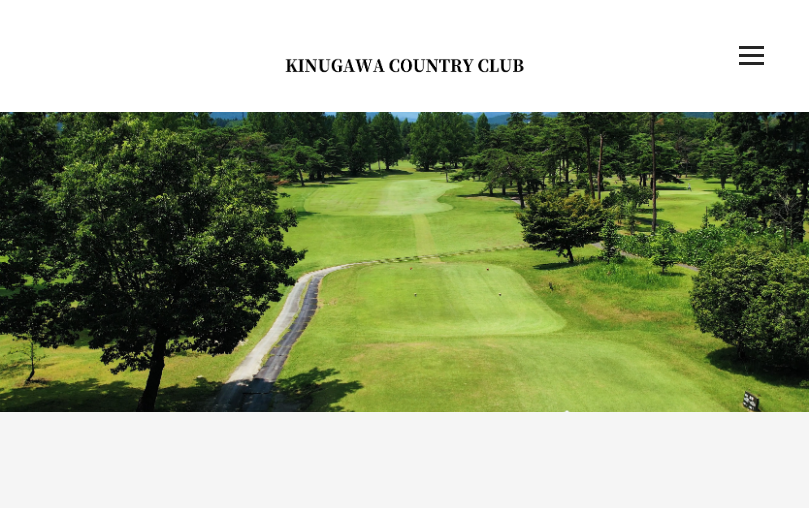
import math
import cairo

surface = cairo.ImageSurface(cairo.Format.RGB24, 809, 508)
ctx = cairo.Context(surface)
options = cairo.FontOptions()
options.set_hint_metrics(cairo.HintMetrics.OFF)
options.set_hint_style(cairo.HintStyle.NONE)
ctx.set_font_options(options)
ctx.set_miter_limit(4)


def ink(r, g, b):
    ctx.set_source_rgb(r / 255, g / 255, b / 255)


def block(x, y, w, h, *color):
    ink(*color)
    ctx.rectangle(x, y, w, h)
    ctx.fill()


def paste(path, x, y, w, h):
    ctx.save()
    ctx.set_source_surface(cairo.ImageSurface.create_from_png(path), x, y)
    ctx.rectangle(x, y, w, h)
    ctx.fill()
    ctx.restore()


ink(255, 255, 255)
ctx.paint()
paste("pic1.png", 285, 58, 239, 15)
block(739, 46, 25, 3, 37, 37, 37)
block(739, 54, 25, 3, 37, 37, 37)
block(739, 62, 25, 3, 37, 37, 37)
paste("pic2.png", 0, 112, 809, 300)
block(0, 412, 809, 96, 245, 245, 245)
surface.write_to_png("screenshot.png")
